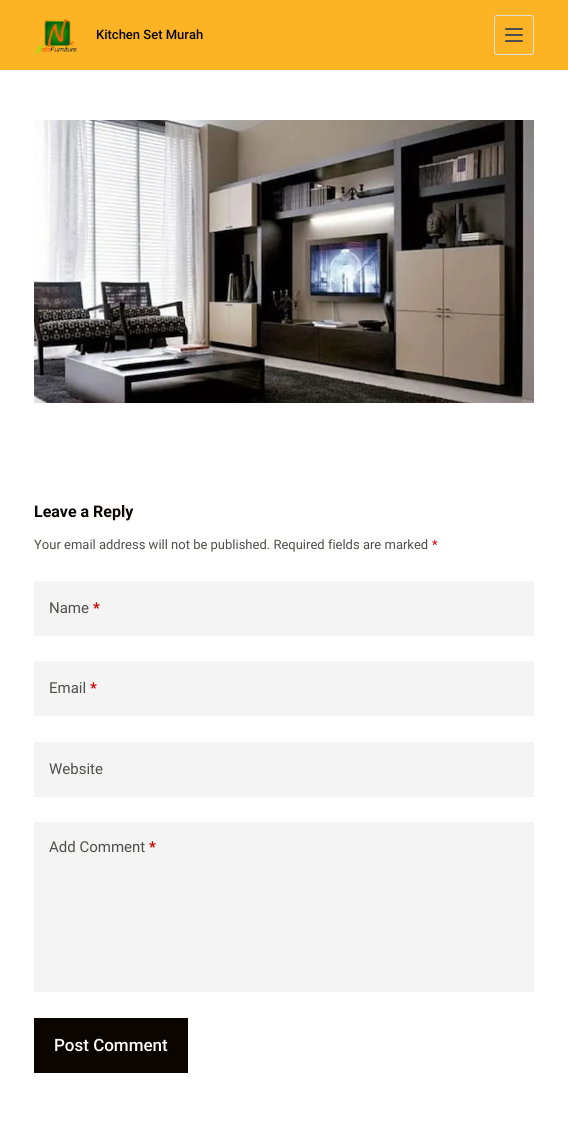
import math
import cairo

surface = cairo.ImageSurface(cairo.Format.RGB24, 568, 1133)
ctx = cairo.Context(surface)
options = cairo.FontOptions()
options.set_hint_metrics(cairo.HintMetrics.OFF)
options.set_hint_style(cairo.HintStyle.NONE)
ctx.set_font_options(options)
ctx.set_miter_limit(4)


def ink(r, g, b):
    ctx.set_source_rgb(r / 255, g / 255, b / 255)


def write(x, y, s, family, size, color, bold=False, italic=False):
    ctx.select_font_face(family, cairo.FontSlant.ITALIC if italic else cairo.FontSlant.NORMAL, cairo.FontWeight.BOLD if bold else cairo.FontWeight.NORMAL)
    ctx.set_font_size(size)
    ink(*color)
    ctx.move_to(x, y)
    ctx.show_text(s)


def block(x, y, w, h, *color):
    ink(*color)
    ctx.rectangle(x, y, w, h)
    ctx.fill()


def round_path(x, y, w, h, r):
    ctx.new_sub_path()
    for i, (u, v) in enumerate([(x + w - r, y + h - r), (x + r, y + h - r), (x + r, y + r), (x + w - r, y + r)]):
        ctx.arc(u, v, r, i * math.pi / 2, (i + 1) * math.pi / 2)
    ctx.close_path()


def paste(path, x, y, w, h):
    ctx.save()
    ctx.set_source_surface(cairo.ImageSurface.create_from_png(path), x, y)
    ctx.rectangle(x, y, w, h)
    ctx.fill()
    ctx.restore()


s1 = dict(family="Roboto Medium", size=13, color=(10, 5, 0))
s2 = dict(family="Roboto", size=16, color=(10, 5, 0), bold=True)
s3 = dict(family="Roboto", size=13, color=(80, 78, 74))
s4 = dict(family="Roboto", size=13, color=(204, 0, 0))
s5 = dict(family="Roboto", size=15, color=(80, 78, 74))
s6 = dict(family="Roboto", size=15, color=(204, 0, 0), bold=True)
s7 = dict(family="Roboto Medium", size=17, color=(255, 255, 255))

ink(255, 255, 255)
ctx.paint()
block(0, 0, 568, 70, 252, 180, 36)
paste("pic1.png", 35, 18, 42, 37)
write(96, 39, "Kitchen Set Murah", **s1)
round_path(494.5, 15.5, 39, 39, 2.5)
ink(227, 224, 215)
ctx.set_line_width(1)
ctx.stroke()
ink(80, 78, 74)
round_path(505, 28, 18, 2, 1)
ctx.fill()
round_path(505, 34, 18, 2, 1)
ctx.fill()
round_path(505, 40, 18, 2, 1)
ctx.fill()
paste("pic2.png", 34, 120, 500, 283)
write(34, 517, "Leave a Reply", **s2)
write(34, 549, "Your email address will not be published. Required fields are marked", **s3)
write(432, 549, "*", **s4)
block(34, 581, 500, 55, 244, 244, 244)
write(49, 613, "Name", **s5)
write(93, 613, "*", **s6)
block(34, 661, 500, 55, 244, 244, 244)
write(49, 693, "Email", **s5)
write(90, 693, "*", **s6)
block(34, 742, 500, 55, 244, 244, 244)
write(49, 774, "Website", **s5)
block(34, 822, 500, 170, 244, 244, 244)
write(49, 852, "Add Comment", **s5)
write(149, 852, "*", **s6)
block(34, 1018, 154, 55, 10, 5, 0)
write(54, 1051, "Post Comment", **s7)
surface.write_to_png("screenshot.png")
